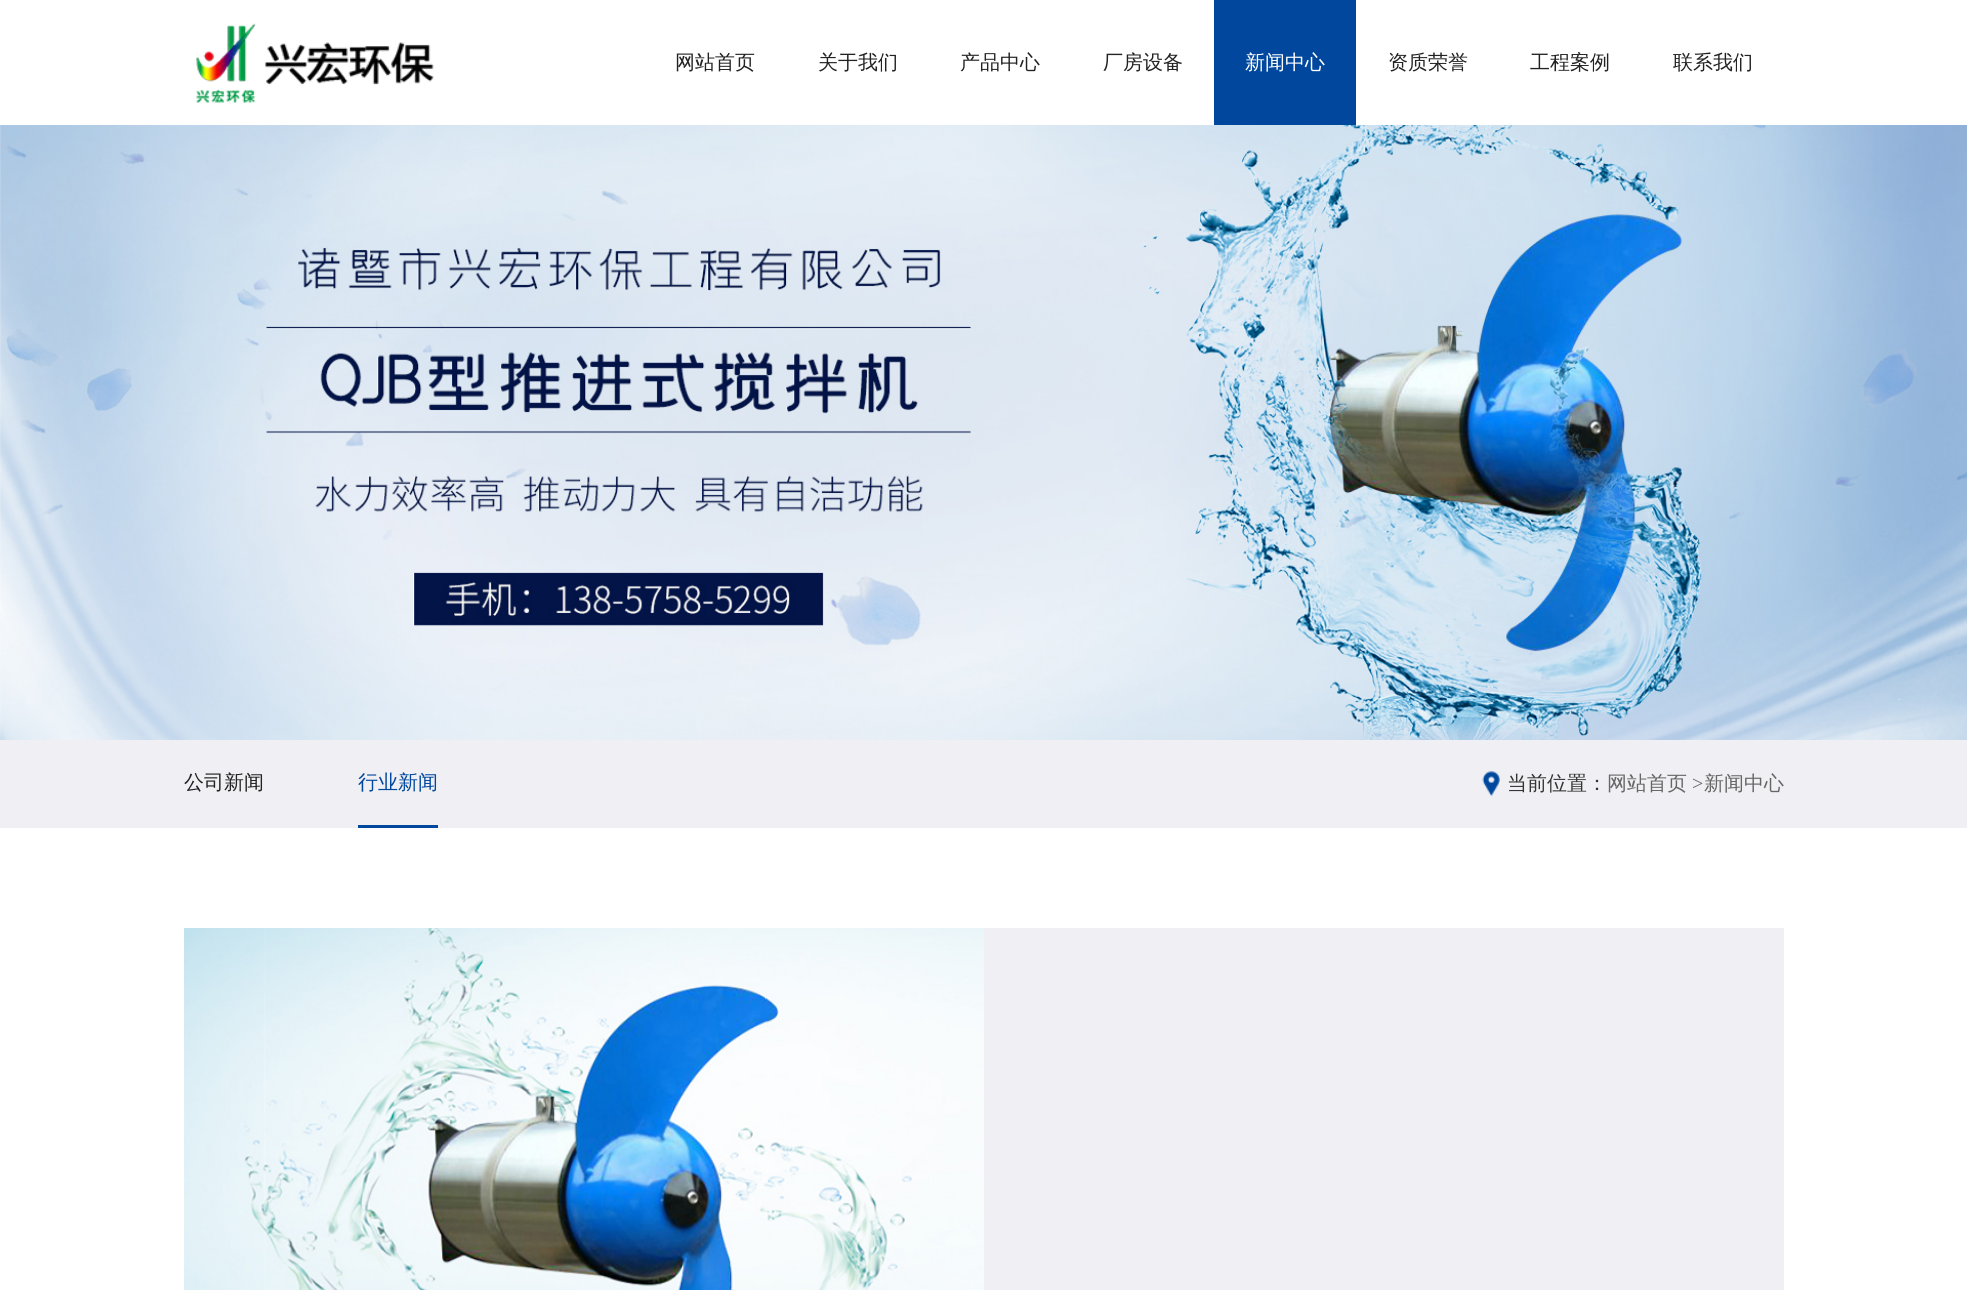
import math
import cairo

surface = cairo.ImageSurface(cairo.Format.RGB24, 1967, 1290)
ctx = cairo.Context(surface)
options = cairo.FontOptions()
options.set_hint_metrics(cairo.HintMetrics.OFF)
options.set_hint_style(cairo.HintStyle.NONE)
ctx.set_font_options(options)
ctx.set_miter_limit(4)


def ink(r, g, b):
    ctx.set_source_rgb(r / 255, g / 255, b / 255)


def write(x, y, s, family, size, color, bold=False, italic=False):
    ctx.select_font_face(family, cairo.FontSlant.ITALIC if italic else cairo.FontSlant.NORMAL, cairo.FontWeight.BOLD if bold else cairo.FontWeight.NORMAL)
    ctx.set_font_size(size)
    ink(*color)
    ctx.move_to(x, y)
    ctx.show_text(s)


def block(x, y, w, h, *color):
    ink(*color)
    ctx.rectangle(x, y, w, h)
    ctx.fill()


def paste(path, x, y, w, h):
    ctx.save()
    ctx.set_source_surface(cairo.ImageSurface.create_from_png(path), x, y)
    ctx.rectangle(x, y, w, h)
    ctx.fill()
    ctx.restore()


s1 = dict(family="WenQuanYi Zen Hei Medium", size=20, color=(34, 34, 34))
s2 = dict(family="WenQuanYi Zen Hei Medium", size=20, color=(255, 255, 255))
s3 = dict(family="WenQuanYi Zen Hei Medium", size=20, color=(0, 71, 157))
s4 = dict(family="WenQuanYi Zen Hei Medium", size=20, color=(51, 51, 51))
s5 = dict(family="WenQuanYi Zen Hei Medium", size=20, color=(102, 102, 102))
s6 = dict(family="Liberation Serif", size=20, color=(102, 102, 102))

ink(255, 255, 255)
ctx.paint()
paste("pic1.png", 196, 23, 238, 80)
write(675, 69, "网站首页", **s1)
write(818, 69, "关于我们", **s1)
write(960, 69, "产品中心", **s1)
write(1103, 69, "厂房设备", **s1)
block(1214, 0, 142, 125, 0, 71, 157)
write(1245, 69, "新闻中心", **s2)
write(1388, 69, "资质荣誉", **s1)
write(1530, 69, "工程案例", **s1)
write(1673, 69, "联系我们", **s1)
paste("pic2.png", 0, 125, 1967, 615)
block(0, 740, 1967, 88, 240, 240, 244)
write(184, 789, "公司新闻", **s1)
block(358, 825, 80, 3, 0, 71, 157)
write(358, 789, "行业新闻", **s3)
paste("pic3.png", 1482, 771, 18, 26)
write(1507, 790, "当前位置：", **s4)
write(1607, 790, "网站首页", **s5)
write(1692, 790, ">", **s6)
write(1704, 790, "新闻中心", **s5)
paste("pic4.png", 184, 928, 800, 362)
block(984, 928, 800, 362, 240, 240, 244)
surface.write_to_png("screenshot.png")
